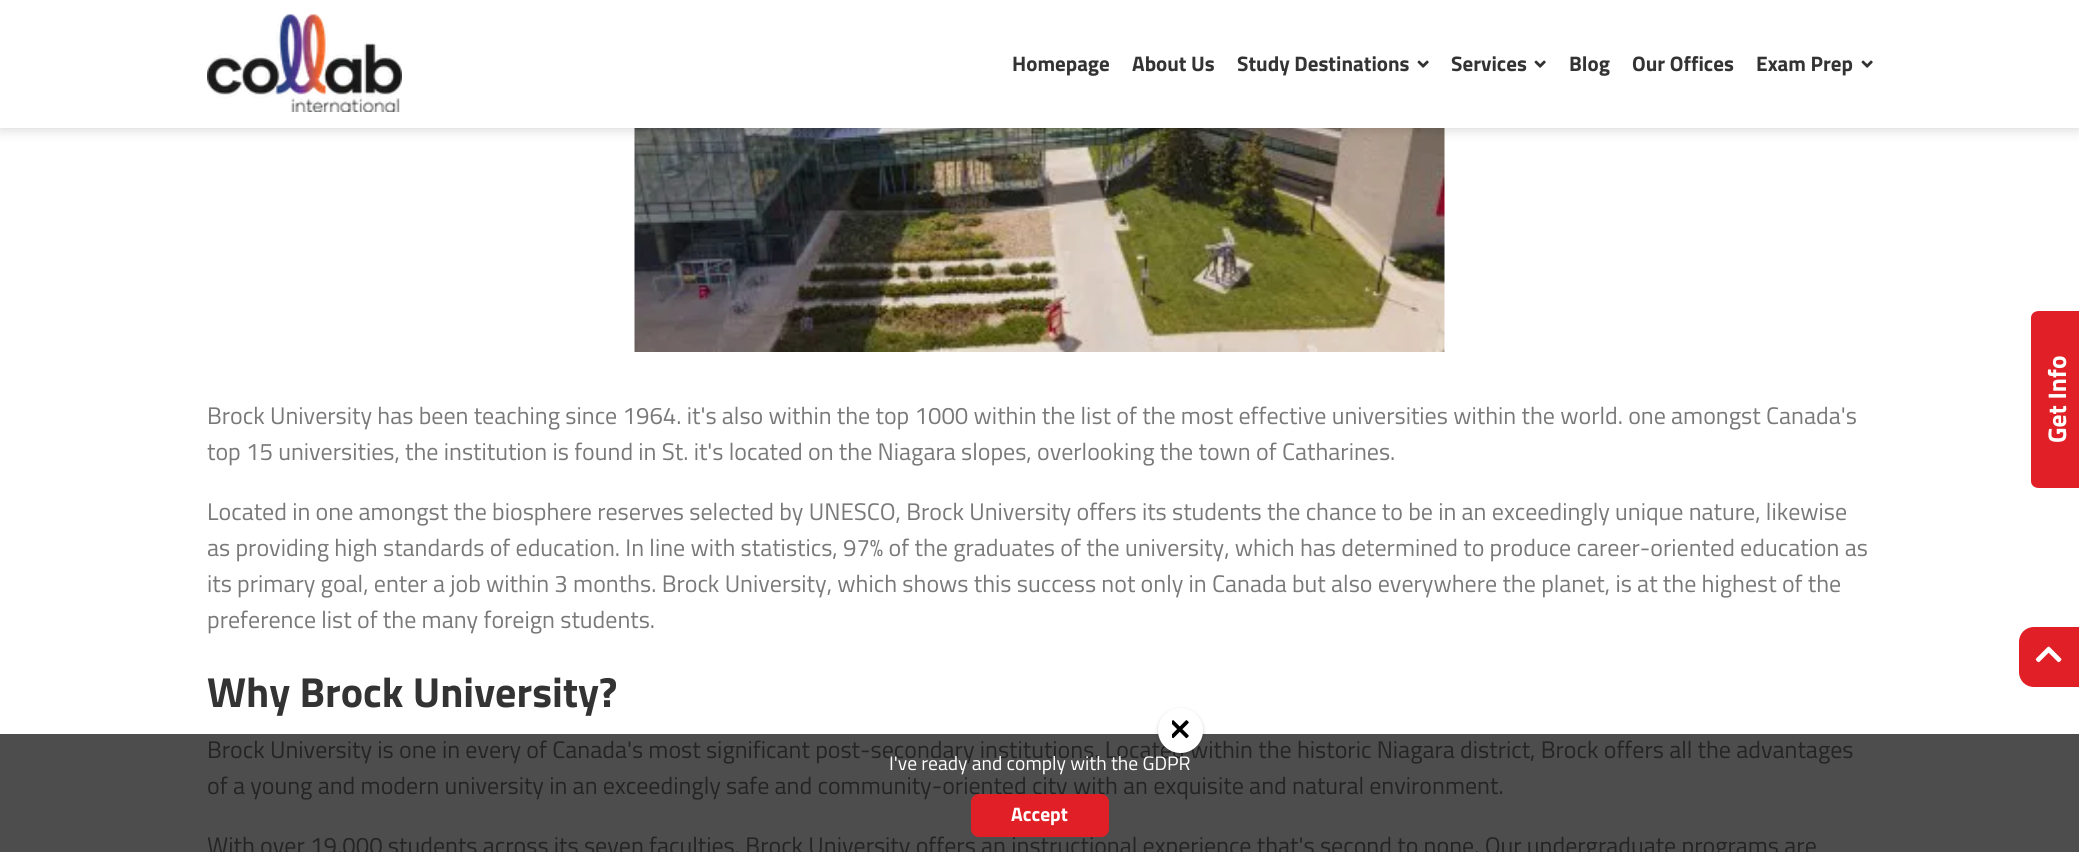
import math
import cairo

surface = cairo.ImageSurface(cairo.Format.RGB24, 2079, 852)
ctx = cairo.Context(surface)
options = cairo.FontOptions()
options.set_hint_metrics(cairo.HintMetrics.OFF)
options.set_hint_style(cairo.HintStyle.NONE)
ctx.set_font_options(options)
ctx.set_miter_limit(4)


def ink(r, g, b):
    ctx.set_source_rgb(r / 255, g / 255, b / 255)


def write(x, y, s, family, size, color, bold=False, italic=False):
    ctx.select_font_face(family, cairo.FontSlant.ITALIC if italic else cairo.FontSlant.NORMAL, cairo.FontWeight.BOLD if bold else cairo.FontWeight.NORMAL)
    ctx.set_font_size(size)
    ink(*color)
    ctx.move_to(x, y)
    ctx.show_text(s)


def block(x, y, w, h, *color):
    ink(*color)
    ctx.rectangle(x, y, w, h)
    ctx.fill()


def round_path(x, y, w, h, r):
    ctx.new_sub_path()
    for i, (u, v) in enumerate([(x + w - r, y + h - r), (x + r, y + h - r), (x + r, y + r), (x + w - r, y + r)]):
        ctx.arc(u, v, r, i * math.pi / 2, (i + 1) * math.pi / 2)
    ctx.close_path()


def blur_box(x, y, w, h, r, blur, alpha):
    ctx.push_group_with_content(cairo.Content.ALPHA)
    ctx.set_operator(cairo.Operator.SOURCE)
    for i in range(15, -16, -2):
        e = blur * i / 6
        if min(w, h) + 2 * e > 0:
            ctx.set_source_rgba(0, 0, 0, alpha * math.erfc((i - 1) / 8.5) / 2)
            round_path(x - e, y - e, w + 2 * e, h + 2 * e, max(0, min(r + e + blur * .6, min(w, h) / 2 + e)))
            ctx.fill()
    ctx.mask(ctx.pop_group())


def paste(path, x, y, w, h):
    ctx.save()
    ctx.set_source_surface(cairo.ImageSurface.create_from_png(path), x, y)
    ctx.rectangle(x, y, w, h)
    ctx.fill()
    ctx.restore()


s1 = dict(family="Titillium Web", size=21, color=(51, 51, 51), bold=True)
s2 = dict(family="Titillium Web", size=24, color=(121, 121, 121))
s3 = dict(family="Titillium Web", size=42, color=(51, 51, 51), bold=True)
s4 = dict(family="Titillium Web", size=24, color=(36, 36, 36))
s5 = dict(family="Titillium Web", size=25.5, color=(255, 255, 255), bold=True)
s6 = dict(family="Titillium Web", size=19.5, color=(255, 255, 255))
s7 = dict(family="Titillium Web", size=19.5, color=(255, 255, 255), bold=True)

ink(255, 255, 255)
ctx.paint()
block(0, 734, 2079, 118, 77, 77, 77)
paste("pic3.png", 634, 128, 811, 224)
ink(0, 0, 0)
blur_box(0, 0, 2079, 128, 0, 7, 0.2)
block(0, 0, 2079, 128, 255, 255, 255)
paste("pic1.png", 207, 14, 195, 98)
write(1012, 71, "Homepage", **s1)
write(1132, 71, "About Us", **s1)
write(1237, 71, "Study Destinations", **s1)
paste("pic2.png", 1417, 60, 12, 8)
write(1451, 71, "Services", **s1)
paste("pic2.png", 1534, 60, 12, 8)
write(1569, 71, "Blog", **s1)
write(1632, 71, "Our Offices", **s1)
write(1756, 71, "Exam Prep", **s1)
paste("pic2.png", 1861, 60, 12, 8)
write(207, 424, "Brock University has been teaching since 1964. it's also within the top 1000 within the list of the most effective universities within the world. one amongst Canada's", **s2)
write(207, 460, "top 15 universities, the institution is found in St. it's located on the Niagara slopes, overlooking the town of Catharines.", **s2)
write(207, 520, "Located in one amongst the biosphere reserves selected by UNESCO, Brock University offers its students the chance to be in an exceedingly unique nature, likewise", **s2)
write(207, 556, "as providing high standards of education. In line with statistics, 97% of the graduates of the university, which has determined to produce career-oriented education as", **s2)
write(207, 592, "its primary goal, enter a job within 3 months. Brock University, which shows this success not only in Canada but also everywhere the planet, is at the highest of the", **s2)
write(207, 628, "preference list of the many foreign students.", **s2)
write(207, 707, "Why Brock University?", **s3)
write(207, 758, "Brock University is one in every of Canada's most significant post-secondary institutions. Located within the historic Niagara district, Brock offers all the advantages", **s4)
write(207, 794, "of a young and modern university in an exceedingly safe and community-oriented city with an exquisite and natural environment.", **s4)
write(207, 854, "With over 19,000 students across its seven faculties, Brock University offers an instructional experience that's second to none. Our undergraduate programs are", **s4)
ink(225, 31, 38)
ctx.new_path()
ctx.move_to(2031, 481)
ctx.line_to(2031, 318)
ctx.curve_to(2031, 314, 2034, 311, 2039, 311)
ctx.line_to(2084, 311)
ctx.line_to(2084, 488)
ctx.line_to(2039, 488)
ctx.curve_to(2034, 488, 2031, 485, 2031, 481)
ctx.close_path()
ctx.fill()
ctx.save()
ctx.translate(2066, 443)
ctx.rotate(-90 * math.pi / 180)
write(0, 0, "Get Info", **s5)
ctx.restore()
ink(225, 31, 38)
ctx.new_path()
ctx.move_to(2034, 627)
ctx.line_to(2079, 627)
ctx.line_to(2079, 687)
ctx.line_to(2034, 687)
ctx.curve_to(2025.5, 687, 2019, 680.5, 2019, 672)
ctx.line_to(2019, 642)
ctx.curve_to(2019, 633.5, 2025.5, 627, 2034, 627)
ctx.close_path()
ctx.fill()
paste("pic4.png", 2035, 646, 27, 17)
ink(0, 0, 0)
blur_box(1158, 710, 45, 45, 22.5, 2, 0.2)
ink(255, 255, 255)
ctx.arc(1180.5, 730.5, 22.5, 0, 2 * math.pi)
ctx.fill()
paste("pic5.png", 1172, 720, 17, 19)
write(889, 770, "I've ready and comply with the GDPR", **s6)
ink(225, 31, 38)
round_path(972.5, 795.5, 135, 40, 6.5)
ctx.fill_preserve()
ctx.set_line_width(3)
ctx.stroke()
write(1011, 821, "Accept", **s7)
surface.write_to_png("screenshot.png")
